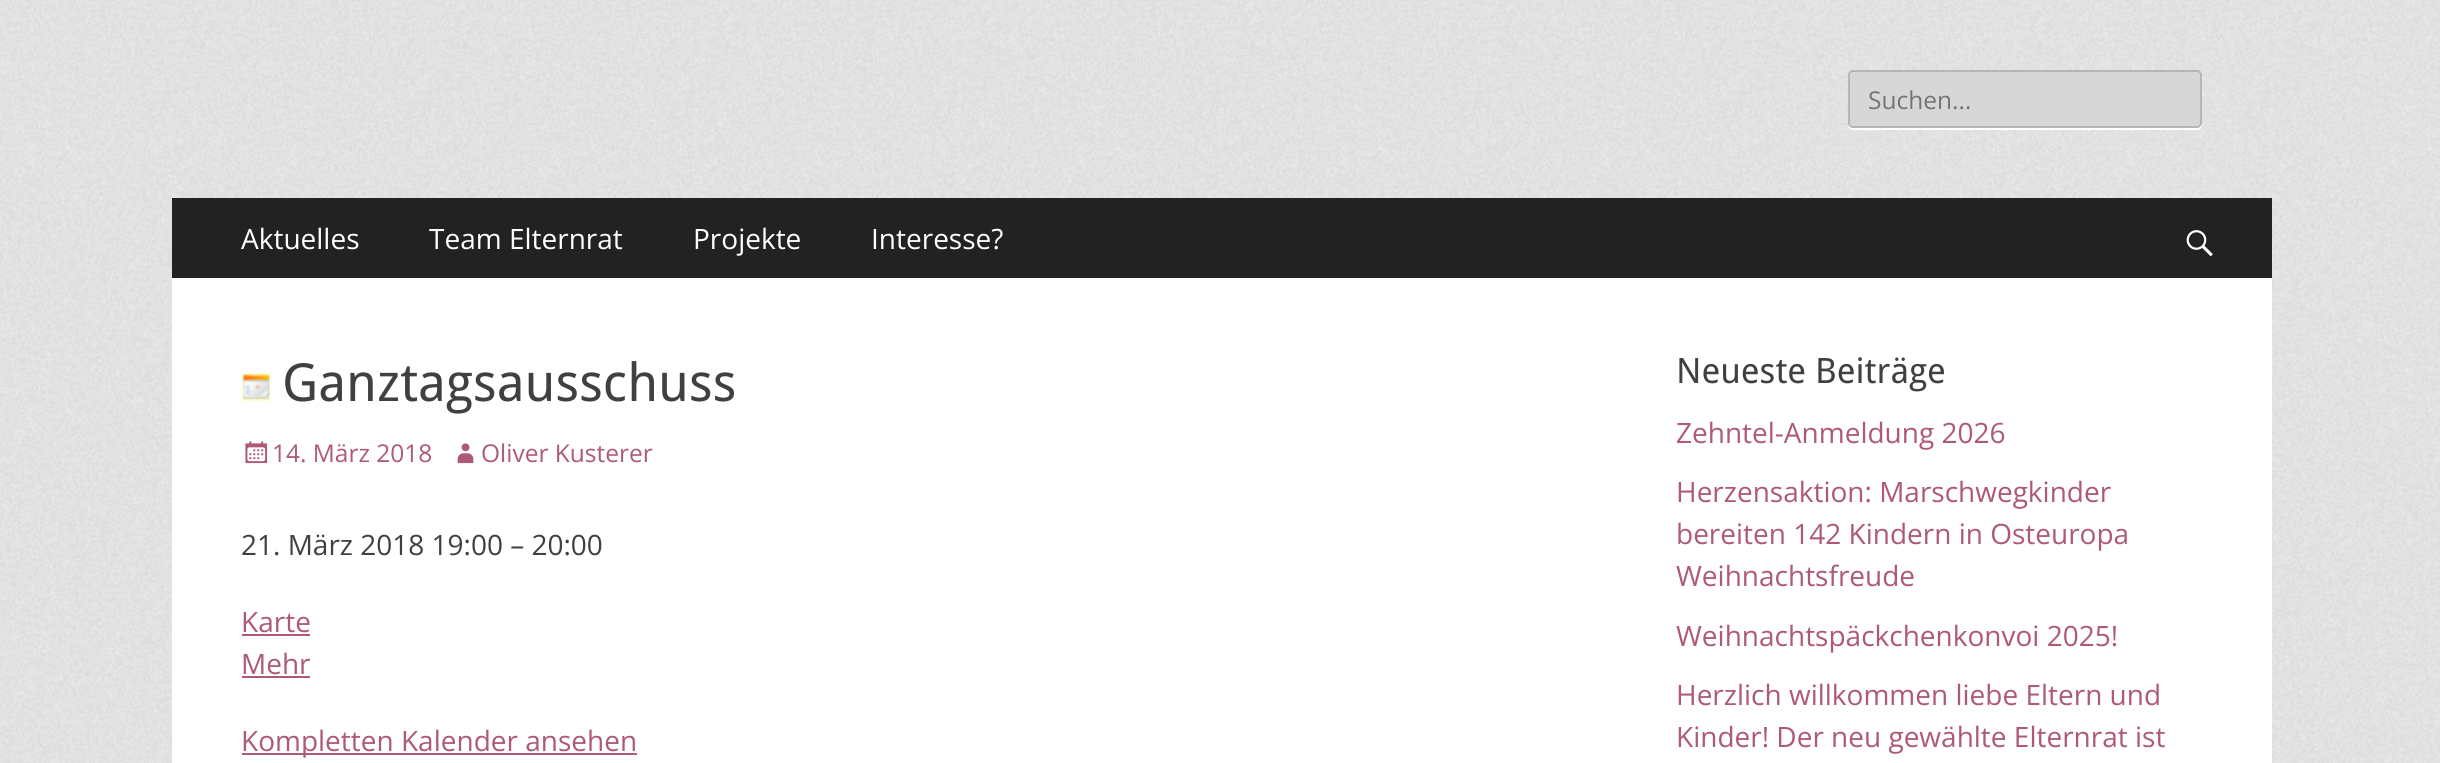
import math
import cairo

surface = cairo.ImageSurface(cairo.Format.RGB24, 2440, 763)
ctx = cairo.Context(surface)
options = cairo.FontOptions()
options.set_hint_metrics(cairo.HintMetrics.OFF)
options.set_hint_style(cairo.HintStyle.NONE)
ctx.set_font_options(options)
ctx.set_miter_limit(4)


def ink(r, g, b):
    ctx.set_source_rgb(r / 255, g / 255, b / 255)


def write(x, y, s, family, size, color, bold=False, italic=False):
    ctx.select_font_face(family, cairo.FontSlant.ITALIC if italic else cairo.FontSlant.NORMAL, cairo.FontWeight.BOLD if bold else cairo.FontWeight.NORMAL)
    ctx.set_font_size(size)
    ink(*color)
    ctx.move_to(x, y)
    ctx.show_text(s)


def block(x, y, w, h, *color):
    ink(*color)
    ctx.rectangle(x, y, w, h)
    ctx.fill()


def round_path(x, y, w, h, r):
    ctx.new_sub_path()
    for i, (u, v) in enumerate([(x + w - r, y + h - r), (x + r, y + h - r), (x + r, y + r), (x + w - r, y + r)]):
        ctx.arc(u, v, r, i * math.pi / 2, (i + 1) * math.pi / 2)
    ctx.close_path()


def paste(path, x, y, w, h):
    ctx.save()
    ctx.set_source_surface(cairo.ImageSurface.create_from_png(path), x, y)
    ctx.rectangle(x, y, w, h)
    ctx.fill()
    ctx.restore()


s1 = dict(family="Open Sans", size=24.5, color=(117, 117, 117))
s2 = dict(family="Open Sans", size=28, color=(255, 255, 255))
s3 = dict(family="Droid Sans", size=52.5, color=(64, 64, 64))
s4 = dict(family="Open Sans", size=24.5, color=(174, 89, 117))
s5 = dict(family="Open Sans", size=28, color=(64, 64, 64))
s6 = dict(family="Open Sans", size=28, color=(174, 89, 117))
s7 = dict(family="Droid Sans", size=35, color=(64, 64, 64))

ink(255, 255, 255)
ctx.paint()
paste("pic1.png", 0, 0, 2440, 763)
ink(255, 255, 255)
ctx.new_path()
ctx.move_to(1848, 122)
ctx.line_to(1848, 125)
ctx.curve_to(1848, 128, 1850, 130, 1853, 130)
ctx.line_to(2197, 130)
ctx.curve_to(2200, 130, 2202, 128, 2202, 125)
ctx.line_to(2202, 77)
ctx.line_to(2201, 75)
ctx.line_to(2202, 122)
ctx.curve_to(2202, 125, 2199, 128, 2196, 128)
ctx.line_to(1853, 128)
ctx.curve_to(1850, 128, 1848, 125, 1848, 122)
ctx.close_path()
ctx.fill()
ink(215, 215, 215)
round_path(1849, 71, 352, 56, 4)
ctx.fill_preserve()
ink(182, 182, 182)
ctx.stroke()
write(1868, 109, "Suchen...", **s1)
block(172, 198, 2100, 80, 34, 34, 34)
write(241, 249, "Aktuelles", **s2)
write(429, 249, "Team Elternrat", **s2)
write(693, 249, "Projekte", **s2)
write(871, 249, "Interesse?", **s2)
paste("pic2.png", 2186, 230, 27, 27)
block(172, 278, 2100, 485, 255, 255, 255)
block(242, 373, 28, 28, 255, 255, 204)
write(282, 401, "Ganztagsausschuss", **s3)
paste("pic3.png", 242, 374, 28, 26)
paste("pic4.png", 245, 441, 23, 23)
write(272, 462, "14. März 2018", **s4)
paste("pic5.png", 457, 443, 17, 21)
write(481, 462, "Oliver Kusterer", **s4)
write(241, 555, "21. März 2018 19:00 – 20:00", **s5)
write(241, 632, "Karte", **s6)
block(242, 634, 68, 2, 174, 89, 117)
write(241, 674, "Mehr", **s6)
block(242, 676, 68, 2, 174, 89, 117)
block(242, 753, 395, 2, 174, 89, 117)
write(241, 751, "Kompletten Kalender ansehen", **s6)
write(1676, 383, "Neueste Beiträge", **s7)
write(1676, 443, "Zehntel-Anmeldung 2026", **s6)
write(1676, 502, "Herzensaktion: Marschwegkinder", **s6)
write(1676, 544, "bereiten 142 Kindern in Osteuropa", **s6)
write(1676, 586, "Weihnachtsfreude", **s6)
write(1676, 646, "Weihnachtspäckchenkonvoi 2025!", **s6)
write(1676, 705, "Herzlich willkommen liebe Eltern und", **s6)
write(1676, 747, "Kinder! Der neu gewählte Elternrat ist", **s6)
surface.write_to_png("screenshot.png")
